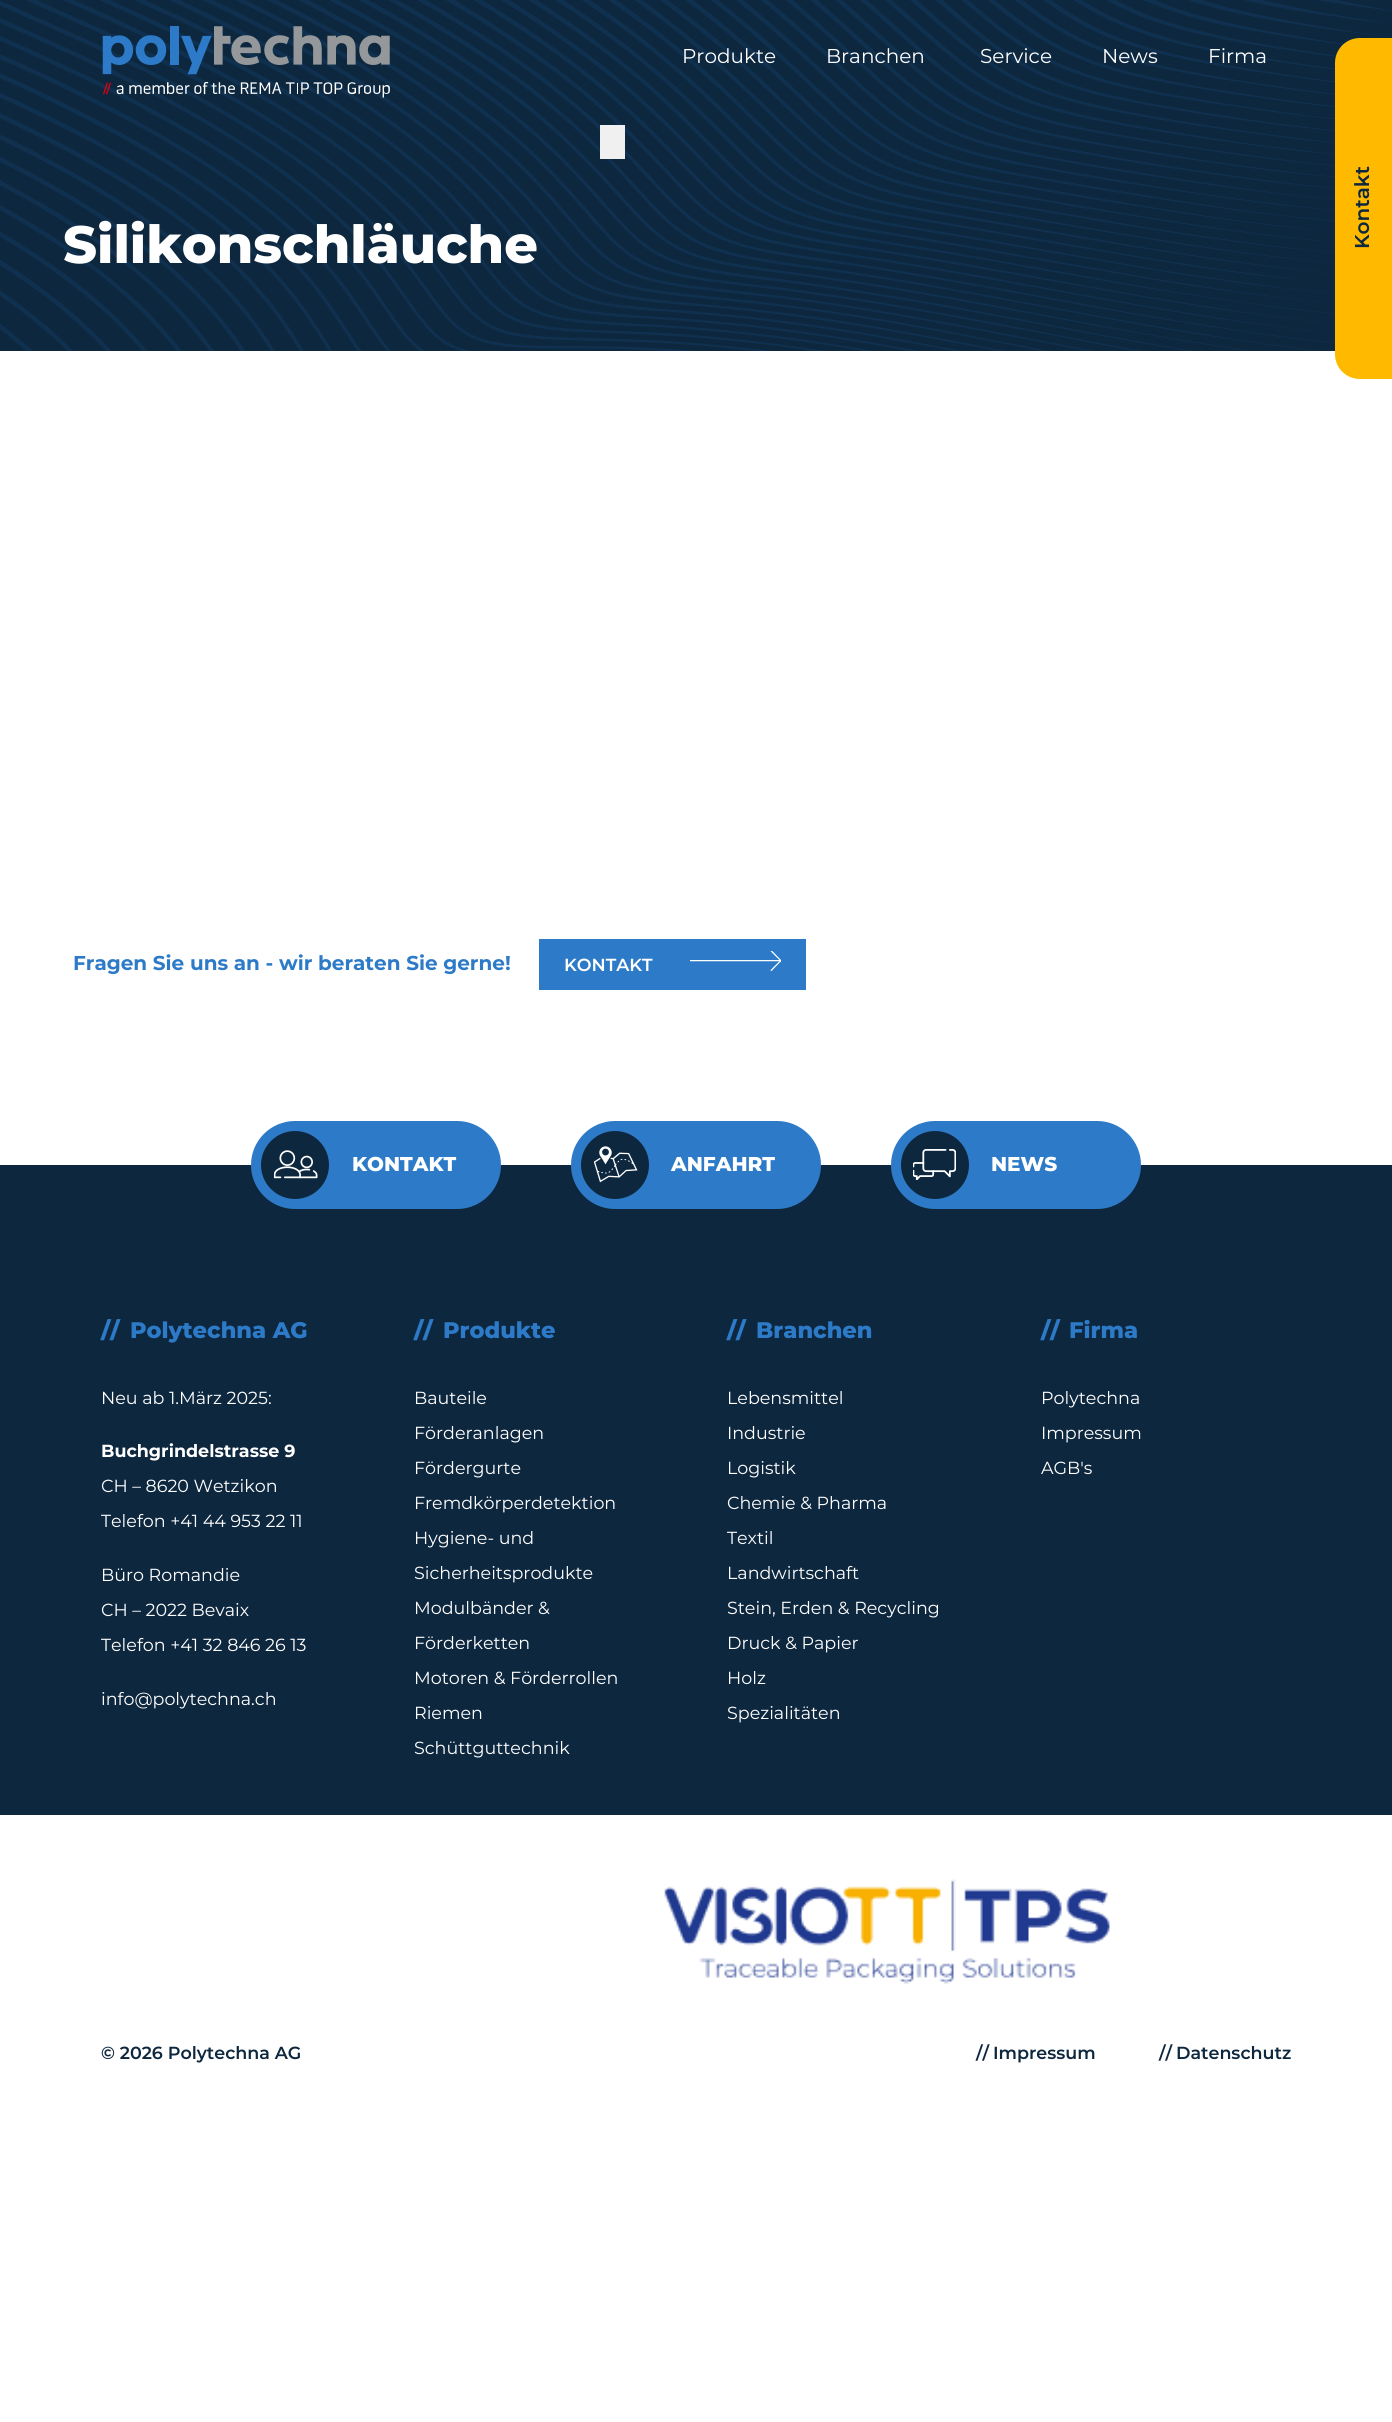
import math
import cairo

surface = cairo.ImageSurface(cairo.Format.RGB24, 1392, 2422)
ctx = cairo.Context(surface)
options = cairo.FontOptions()
options.set_hint_metrics(cairo.HintMetrics.OFF)
options.set_hint_style(cairo.HintStyle.NONE)
ctx.set_font_options(options)
ctx.set_miter_limit(4)


def ink(r, g, b):
    ctx.set_source_rgb(r / 255, g / 255, b / 255)


def write(x, y, s, family, size, color, bold=False, italic=False):
    ctx.select_font_face(family, cairo.FontSlant.ITALIC if italic else cairo.FontSlant.NORMAL, cairo.FontWeight.BOLD if bold else cairo.FontWeight.NORMAL)
    ctx.set_font_size(size)
    ink(*color)
    ctx.move_to(x, y)
    ctx.show_text(s)


def block(x, y, w, h, *color):
    ink(*color)
    ctx.rectangle(x, y, w, h)
    ctx.fill()


def round_path(x, y, w, h, r):
    ctx.new_sub_path()
    for i, (u, v) in enumerate([(x + w - r, y + h - r), (x + r, y + h - r), (x + r, y + r), (x + w - r, y + r)]):
        ctx.arc(u, v, r, i * math.pi / 2, (i + 1) * math.pi / 2)
    ctx.close_path()


def paste(path, x, y, w, h):
    ctx.save()
    ctx.set_source_surface(cairo.ImageSurface.create_from_png(path), x, y)
    ctx.rectangle(x, y, w, h)
    ctx.fill()
    ctx.restore()


s1 = dict(family="Montserrat", size=20, color=(255, 255, 255))
s2 = dict(family="Montserrat ExtraBold", size=52.5, color=(255, 255, 255))
s3 = dict(family="Montserrat SemiBold", size=20, color=(13, 39, 63))
s4 = dict(family="Montserrat", size=20, color=(45, 123, 200), bold=True)
s5 = dict(family="Montserrat SemiBold", size=17.5, color=(255, 255, 255))
s6 = dict(family="Montserrat ExtraBold", size=20, color=(255, 255, 255))
s7 = dict(family="Montserrat ExtraBold", size=22.5, color=(45, 123, 200))
s8 = dict(family="Montserrat", size=17.5, color=(255, 255, 255))
s9 = dict(family="Montserrat", size=17.5, color=(255, 255, 255), bold=True)
s10 = dict(family="Montserrat SemiBold", size=17.5, color=(13, 39, 63))

ink(255, 255, 255)
ctx.paint()
block(0, 0, 1392, 351, 13, 39, 63)
paste("pic1.png", 0, 0, 1392, 351)
paste("pic2.png", 102, 26, 288, 72)
write(682, 63, "Produkte", **s1)
write(826, 63, "Branchen", **s1)
write(980, 63, "Service", **s1)
write(1102, 63, "News", **s1)
write(1208, 63, "Firma", **s1)
block(600, 125, 25, 34, 240, 240, 241)
write(63, 263, "Silikonschläuche", **s2)
ink(255, 186, 0)
ctx.new_path()
ctx.move_to(1360, 38)
ctx.line_to(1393, 38)
ctx.line_to(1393, 379)
ctx.line_to(1360, 379)
ctx.curve_to(1346, 379, 1335, 368, 1335, 354)
ctx.line_to(1335, 63)
ctx.curve_to(1335, 49, 1346, 38, 1360, 38)
ctx.close_path()
ctx.fill()
ctx.save()
ctx.translate(1369, 249)
ctx.rotate(-90 * math.pi / 180)
write(0, 0, "Kontakt", **s3)
ctx.restore()
write(73, 970, "Fragen Sie uns an - wir beraten Sie gerne!", **s4)
block(539, 939, 267, 51, 45, 123, 200)
write(564, 971, "KONTAKT", **s5)
paste("pic3.png", 690, 951, 91, 20)
block(0, 1165, 1392, 650, 13, 39, 63)
ink(45, 123, 200)
round_path(251, 1121, 250, 88, 44)
ctx.fill()
ink(13, 39, 63)
ctx.arc(295, 1165, 34, 0, 2 * math.pi)
ctx.fill()
paste("pic4.png", 274, 1150, 44, 29)
write(352, 1171, "KONTAKT", **s6)
ink(45, 123, 200)
round_path(571, 1121, 250, 88, 44)
ctx.fill()
ink(13, 39, 63)
ctx.arc(615, 1165, 34, 0, 2 * math.pi)
ctx.fill()
paste("pic5.png", 594, 1146, 44, 37)
write(671, 1171, "ANFAHRT", **s6)
ink(45, 123, 200)
round_path(891, 1121, 250, 88, 44)
ctx.fill()
ink(13, 39, 63)
ctx.arc(935, 1165, 34, 0, 2 * math.pi)
ctx.fill()
paste("pic6.png", 913, 1149, 43, 31)
write(991, 1171, "NEWS", **s6)
write(101, 1338, "//", **s7)
write(130, 1338, "Polytechna AG", **s7)
write(101, 1404, "Neu ab 1.März 2025:", **s8)
write(101, 1457, "Buchgrindelstrasse 9", **s9)
write(101, 1492, "CH – 8620 Wetzikon", **s8)
write(101, 1527, "Telefon +41 44 953 22 11", **s8)
write(101, 1581, "Büro Romandie", **s8)
write(101, 1616, "CH – 2022 Bevaix", **s8)
write(101, 1651, "Telefon +41 32 846 26 13", **s8)
write(101, 1705, "info@polytechna.ch", **s8)
write(414, 1338, "//", **s7)
write(443, 1338, "Produkte", **s7)
write(414, 1404, "Bauteile", **s8)
write(414, 1439, "Förderanlagen", **s8)
write(414, 1474, "Fördergurte", **s8)
write(414, 1509, "Fremdkörperdetektion", **s8)
write(414, 1544, "Hygiene- und", **s8)
write(414, 1579, "Sicherheitsprodukte", **s8)
write(414, 1614, "Modulbänder &", **s8)
write(414, 1649, "Förderketten", **s8)
write(414, 1684, "Motoren & Förderrollen", **s8)
write(414, 1719, "Riemen", **s8)
write(414, 1754, "Schüttguttechnik", **s8)
write(727, 1338, "//", **s7)
write(756, 1338, "Branchen", **s7)
write(727, 1404, "Lebensmittel", **s8)
write(727, 1439, "Industrie", **s8)
write(727, 1474, "Logistik", **s8)
write(727, 1509, "Chemie & Pharma", **s8)
write(727, 1544, "Textil", **s8)
write(727, 1579, "Landwirtschaft", **s8)
write(727, 1614, "Stein, Erden & Recycling", **s8)
write(727, 1649, "Druck & Papier", **s8)
write(727, 1684, "Holz", **s8)
write(727, 1719, "Spezialitäten", **s8)
write(1041, 1338, "//", **s7)
write(1069, 1338, "Firma", **s7)
write(1041, 1404, "Polytechna", **s8)
write(1041, 1439, "Impressum", **s8)
write(1041, 1474, "AGB's", **s8)
paste("pic7.png", 664, 1879, 446, 105)
write(101, 2059, "© 2026 Polytechna AG", **s10)
write(976, 2059, "//", **s10)
write(993, 2059, "Impressum", **s10)
write(1159, 2059, "//", **s10)
write(1176, 2059, "Datenschutz", **s10)
surface.write_to_png("screenshot.png")
